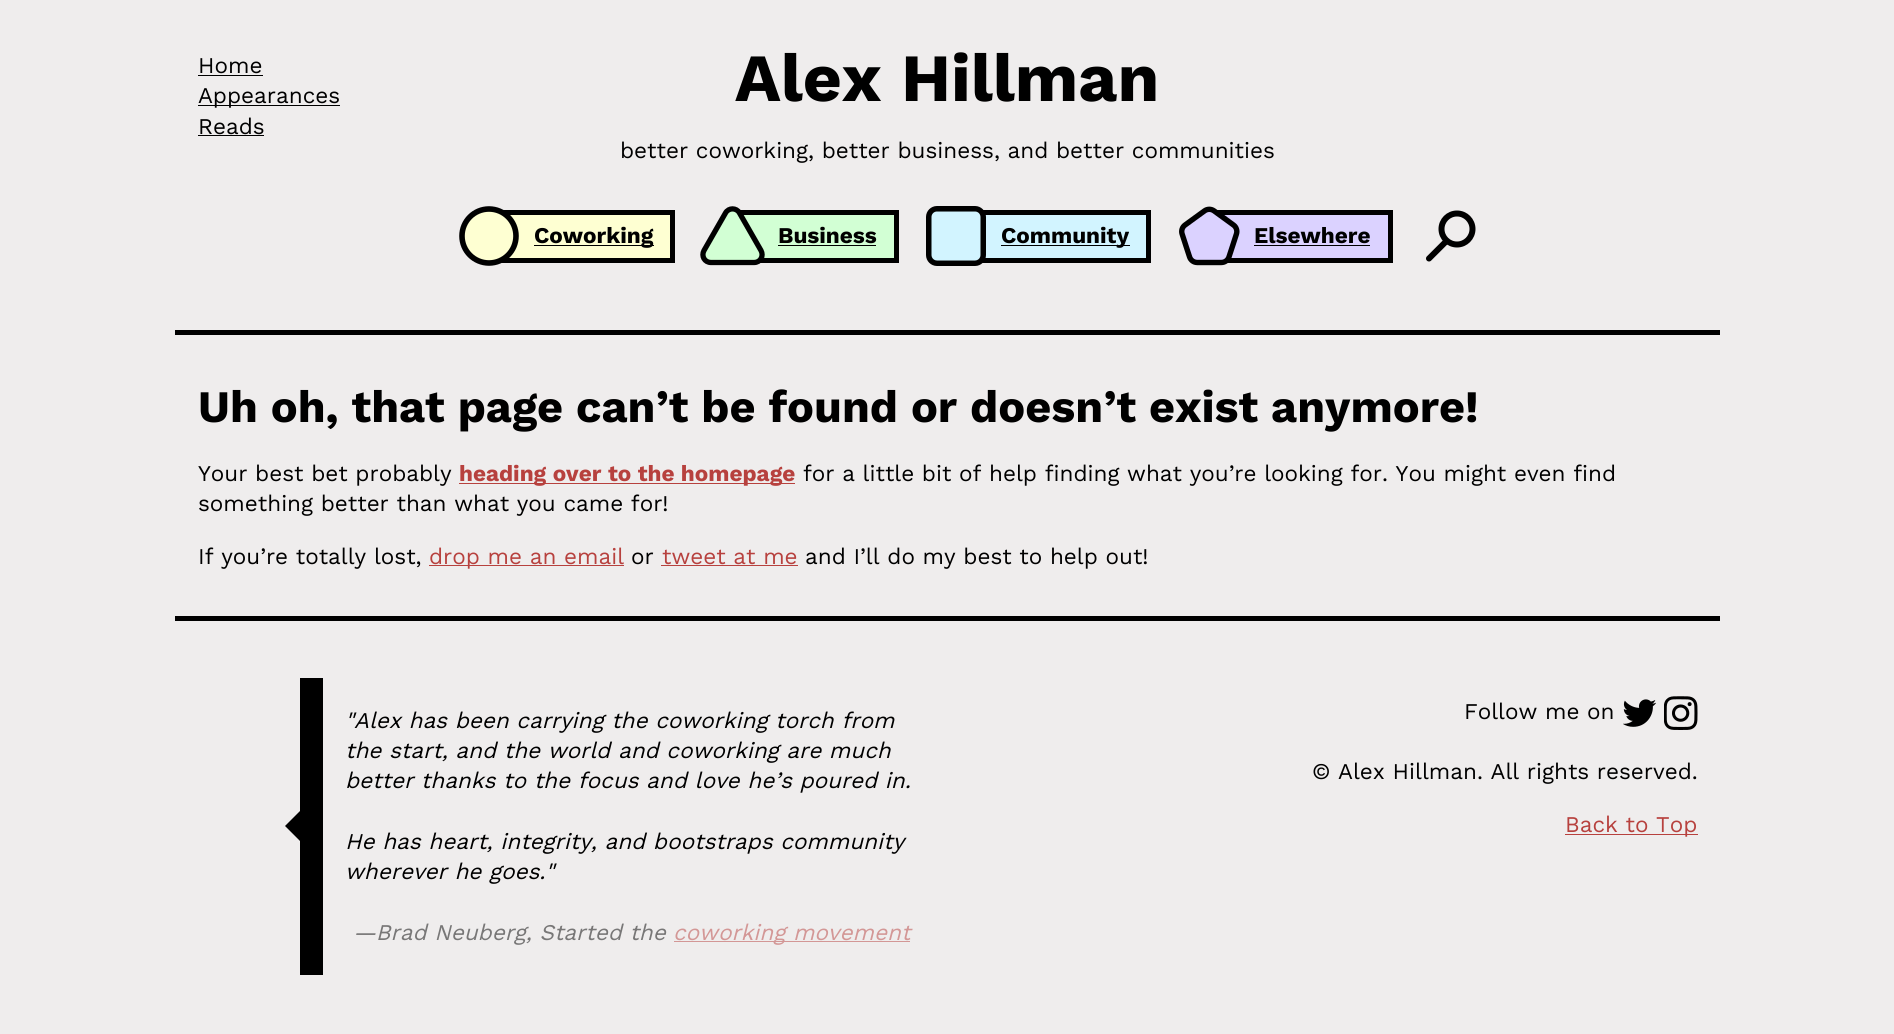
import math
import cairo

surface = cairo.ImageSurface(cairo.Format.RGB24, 1894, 1034)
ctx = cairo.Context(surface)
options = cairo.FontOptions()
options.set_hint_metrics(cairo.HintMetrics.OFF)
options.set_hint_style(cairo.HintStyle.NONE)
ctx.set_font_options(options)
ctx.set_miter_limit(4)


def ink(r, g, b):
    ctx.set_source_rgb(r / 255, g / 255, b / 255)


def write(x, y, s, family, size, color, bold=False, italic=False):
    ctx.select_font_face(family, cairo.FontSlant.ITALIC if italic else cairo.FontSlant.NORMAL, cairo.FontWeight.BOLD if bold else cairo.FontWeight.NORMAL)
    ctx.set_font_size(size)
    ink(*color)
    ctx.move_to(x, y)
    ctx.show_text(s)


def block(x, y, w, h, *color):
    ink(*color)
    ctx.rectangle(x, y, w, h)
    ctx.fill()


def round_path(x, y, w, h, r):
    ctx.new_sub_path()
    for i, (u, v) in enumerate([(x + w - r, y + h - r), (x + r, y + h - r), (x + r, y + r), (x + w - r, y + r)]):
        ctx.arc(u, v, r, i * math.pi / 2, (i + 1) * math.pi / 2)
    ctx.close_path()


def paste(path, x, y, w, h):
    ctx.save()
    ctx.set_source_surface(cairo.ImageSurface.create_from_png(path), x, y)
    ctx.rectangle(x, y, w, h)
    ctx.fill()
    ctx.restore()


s1 = dict(family="Work Sans", size=22.5, color=(0, 0, 0))
s2 = dict(family="Work Sans", size=67.5, color=(0, 0, 0), bold=True)
s3 = dict(family="Work Sans", size=22.5, color=(0, 0, 0), bold=True)
s4 = dict(family="Work Sans", size=45, color=(0, 0, 0), bold=True)
s5 = dict(family="Work Sans", size=22.5, color=(183, 65, 62), bold=True)
s6 = dict(family="Work Sans", size=22.5, color=(183, 65, 62))
s7 = dict(family="Work Sans", size=22.5, color=(0, 0, 0), italic=True)
s8 = dict(family="Work Sans", size=22.5, color=(120, 119, 119), italic=True)
s9 = dict(family="Work Sans", size=22.5, color=(211, 151, 150), italic=True)

ink(239, 237, 237)
ctx.paint()
write(198, 73, "Home", **s1)
block(198, 75, 65, 1, 0, 0, 0)
block(198, 105, 142, 1, 0, 0, 0)
write(198, 103, "Appearances", **s1)
write(198, 134, "Reads", **s1)
block(198, 135, 66, 1, 0, 0, 0)
write(735, 101, "Alex Hillman", **s2)
write(620, 158, "better coworking, better business, and better communities", **s1)
block(509, 215, 161, 43, 254, 255, 210)
ctx.rectangle(486.5, 212.5, 186, 48)
ink(0, 0, 0)
ctx.set_line_width(5)
ctx.stroke()
ink(254, 255, 210)
ctx.arc(489, 236, 27, 0, 2 * math.pi)
ctx.fill_preserve()
ink(0, 0, 0)
ctx.set_line_width(5.6)
ctx.stroke()
block(534, 245, 120, 1, 0, 0, 0)
write(534, 243, "Coworking", **s3)
block(743, 215, 151, 43, 210, 255, 212)
ctx.rectangle(730.5, 212.5, 166, 48)
ink(0, 0, 0)
ctx.set_line_width(5)
ctx.stroke()
ink(210, 255, 212)
ctx.new_path()
ctx.move_to(739, 213)
ctx.line_to(761, 250)
ctx.curve_to(764, 256, 760, 262, 754, 262)
ctx.line_to(711, 262)
ctx.curve_to(705, 262, 701, 256, 704, 250)
ctx.line_to(726, 213)
ctx.curve_to(729, 208, 736, 208, 739, 213)
ctx.close_path()
ctx.fill()
ctx.new_path()
ctx.move_to(739.5, 213)
ctx.line_to(761, 250.5)
ctx.curve_to(764, 256, 760.5, 262.5, 754, 262.5)
ctx.line_to(711, 262.5)
ctx.curve_to(704.5, 262.5, 701, 256, 704, 250.5)
ctx.line_to(725.5, 213)
ctx.curve_to(728.5, 207.5, 736.5, 207.5, 739.5, 213)
ctx.close_path()
ink(0, 0, 0)
ctx.set_line_width(5.3)
ctx.stroke()
write(778, 243, "Business", **s3)
block(778, 245, 98, 1, 0, 0, 0)
block(985, 215, 161, 43, 210, 244, 255)
ctx.rectangle(953.5, 212.5, 195, 48)
ink(0, 0, 0)
ctx.set_line_width(5)
ctx.stroke()
ink(210, 244, 255)
round_path(928.75, 208.75, 54.5, 54.5, 8.25)
ctx.fill_preserve()
ink(0, 0, 0)
ctx.set_line_width(5.5)
ctx.stroke()
block(1001, 245, 129, 1, 0, 0, 0)
write(1001, 243, "Community", **s3)
block(1224, 215, 164, 43, 219, 210, 255)
ctx.rectangle(1206.5, 212.5, 184, 48)
ink(0, 0, 0)
ctx.set_line_width(5)
ctx.stroke()
paste("pic1.png", 1179, 206, 61, 60)
write(1254, 243, "Elsewhere", **s3)
block(1254, 245, 116, 1, 0, 0, 0)
ctx.new_path()
ctx.move_to(1429, 258.5)
ctx.line_to(1446, 241.5)
ctx.set_line_width(6)
ctx.set_line_cap(cairo.LineCap.ROUND)
ctx.set_line_join(cairo.LineJoin.ROUND)
ctx.stroke()
ctx.arc(1457, 229, 15.5, 0, 2 * math.pi)
ctx.set_line_cap(cairo.LineCap.BUTT)
ctx.set_line_join(cairo.LineJoin.MITER)
ctx.stroke()
block(175, 330, 1545, 5, 0, 0, 0)
write(198, 422, "Uh oh, that page can’t be found or doesn’t exist anymore!", **s4)
write(198, 481, "Your best bet probably", **s1)
block(459, 483, 336, 1, 183, 65, 62)
write(459, 481, "heading over to the homepage", **s5)
write(803, 481, "for a little bit of help finding what you’re looking for. You might even find", **s1)
write(198, 511, "something better than what you came for!", **s1)
write(198, 564, "If you’re totally lost,", **s1)
block(429, 565, 195, 1, 183, 65, 62)
write(429, 564, "drop me an email", **s6)
write(631, 564, "or", **s1)
write(662, 564, "tweet at me", **s6)
block(661, 565, 137, 1, 183, 65, 62)
write(805, 564, "and I’ll do my best to help out!", **s1)
block(175, 616, 1545, 5, 0, 0, 0)
block(300, 678, 23, 297, 0, 0, 0)
ctx.new_path()
ctx.move_to(300, 811)
ctx.line_to(300, 841)
ctx.line_to(285, 826)
ctx.close_path()
ctx.fill()
write(345, 728, "\"Alex has been carrying the coworking torch from", **s7)
write(345, 758, "the start, and the world and coworking are much", **s7)
write(345, 788, "better thanks to the focus and love he’s poured in.", **s7)
write(345, 849, "He has heart, integrity, and bootstraps community", **s7)
write(345, 879, "wherever he goes.\"", **s7)
write(353, 940, "—Brad Neuberg, Started the", **s8)
block(674, 941, 236, 1, 211, 151, 150)
write(673, 940, "coworking movement", **s9)
write(1464, 719, "Follow me on", **s1)
paste("pic2.png", 1623, 699, 33, 28)
paste("pic3.png", 1664, 696, 34, 34)
write(1312, 779, "© Alex Hillman. All rights reserved.", **s1)
block(1565, 834, 133, 1, 183, 65, 62)
write(1565, 832, "Back to Top", **s6)
surface.write_to_png("screenshot.png")
